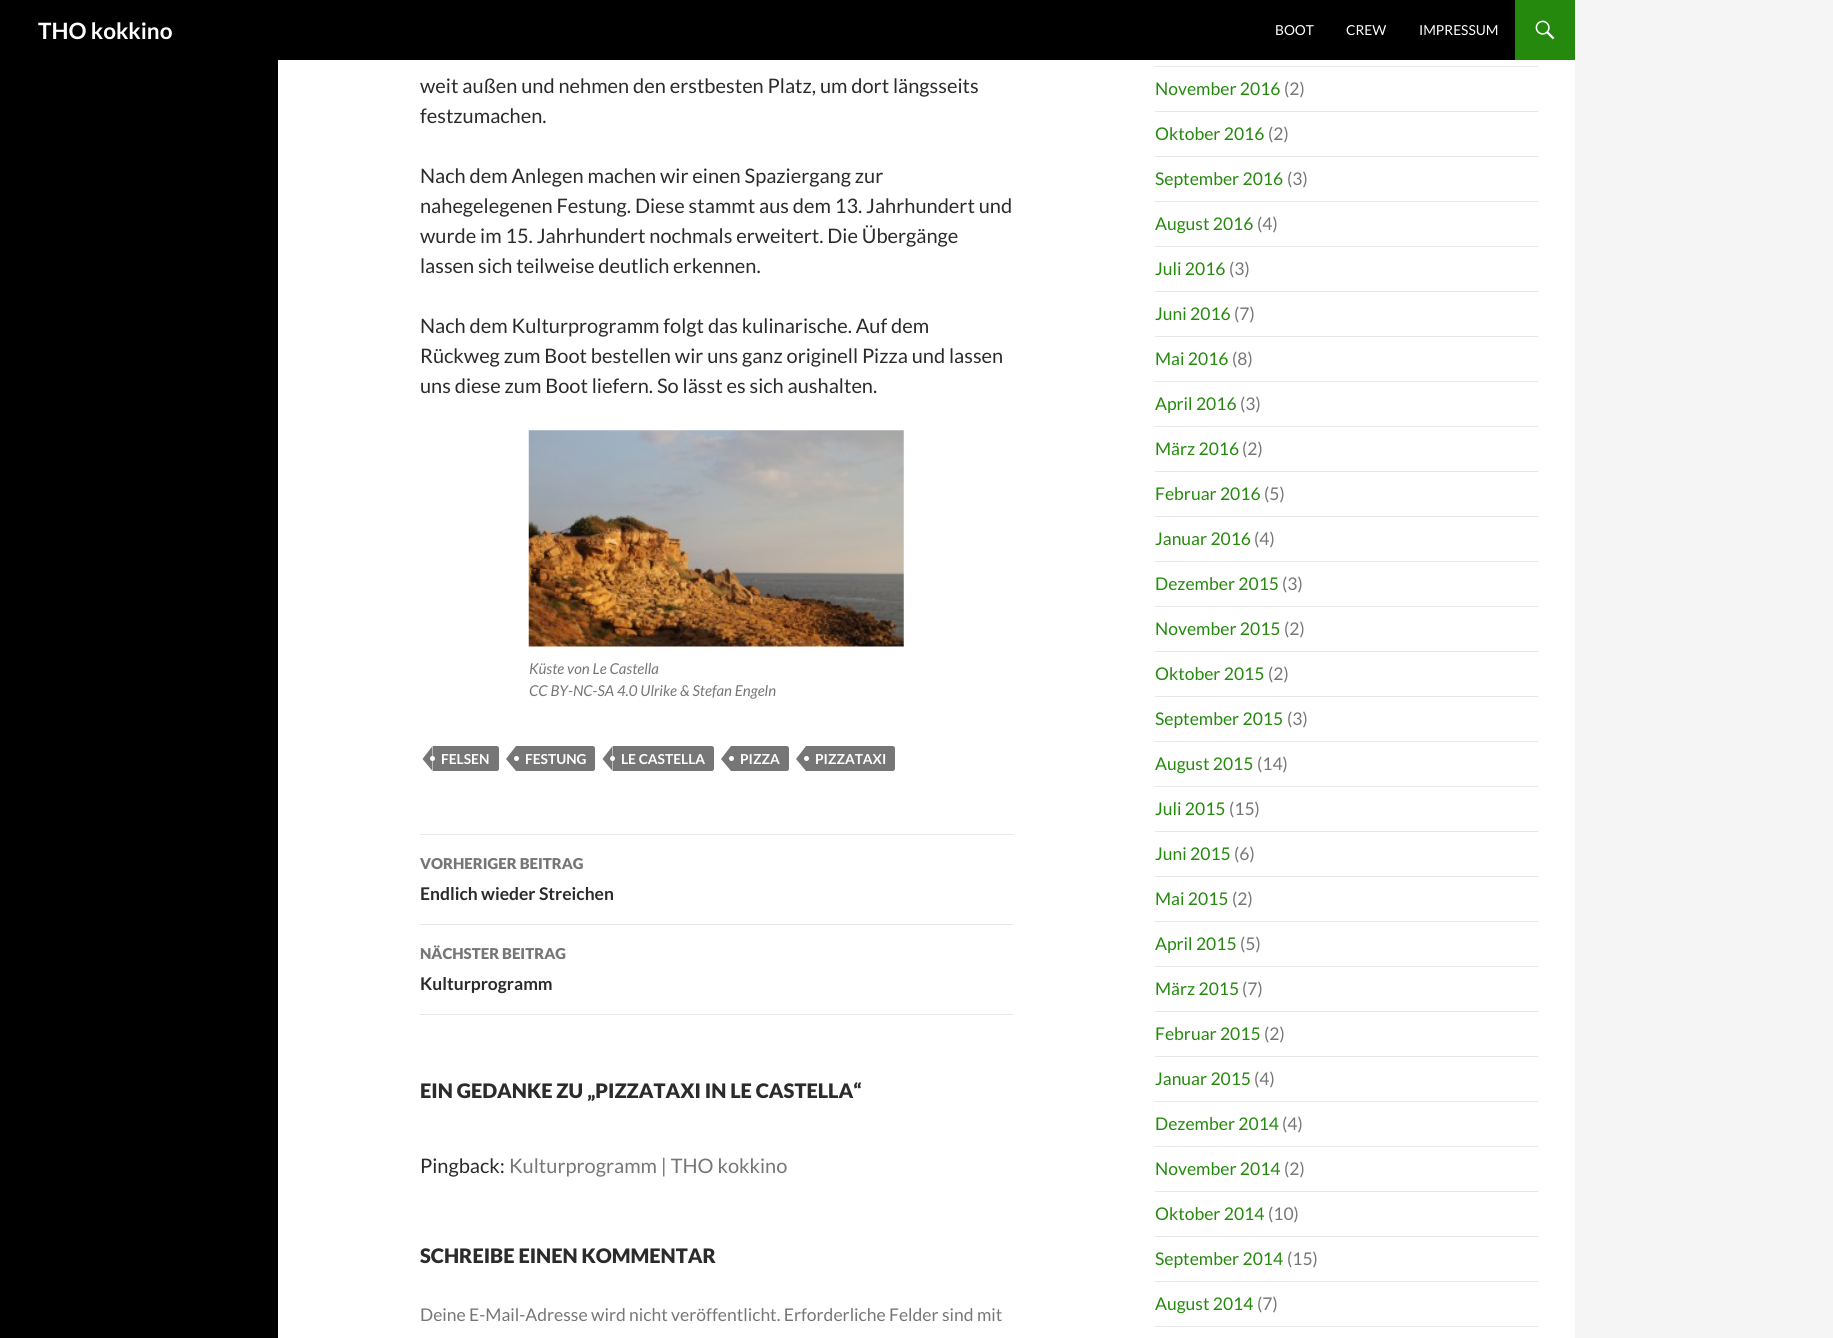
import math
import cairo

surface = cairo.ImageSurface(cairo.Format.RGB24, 1833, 1338)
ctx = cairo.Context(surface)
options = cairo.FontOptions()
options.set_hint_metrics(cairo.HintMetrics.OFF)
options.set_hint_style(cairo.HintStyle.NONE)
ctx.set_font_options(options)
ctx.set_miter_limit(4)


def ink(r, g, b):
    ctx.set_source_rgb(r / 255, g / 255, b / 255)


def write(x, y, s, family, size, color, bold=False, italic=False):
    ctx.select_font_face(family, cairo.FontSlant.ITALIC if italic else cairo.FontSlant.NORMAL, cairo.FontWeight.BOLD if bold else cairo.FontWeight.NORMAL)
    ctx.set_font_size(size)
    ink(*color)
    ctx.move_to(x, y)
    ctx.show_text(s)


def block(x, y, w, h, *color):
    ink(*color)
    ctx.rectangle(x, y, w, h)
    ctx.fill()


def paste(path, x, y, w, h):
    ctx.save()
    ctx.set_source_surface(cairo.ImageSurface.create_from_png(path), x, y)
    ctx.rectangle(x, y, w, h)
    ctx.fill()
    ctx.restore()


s1 = dict(family="Lato", size=22.5, color=(255, 255, 255), bold=True)
s2 = dict(family="Lato", size=13.75, color=(255, 255, 255))
s3 = dict(family="Lato", size=20, color=(43, 43, 43))
s4 = dict(family="Lato", size=15, color=(118, 118, 118), italic=True)
s5 = dict(family="Lato", size=13.75, color=(255, 255, 255), bold=True)
s6 = dict(family="Lato Black", size=15, color=(118, 118, 118))
s7 = dict(family="Lato", size=17.5, color=(43, 43, 43), bold=True)
s8 = dict(family="Lato Black", size=20, color=(43, 43, 43))
s9 = dict(family="Lato", size=20, color=(118, 118, 118))
s10 = dict(family="Lato", size=17.5, color=(118, 118, 118))
s11 = dict(family="Lato", size=17.5, color=(36, 137, 13))

ink(245, 245, 245)
ctx.paint()
block(278, 60, 1297, 1278, 255, 255, 255)
block(0, 0, 1515, 60, 0, 0, 0)
ctx.save()
ctx.rectangle(38, 0, 135, 60)
ctx.clip()
write(38, 39, "THO kokkino", **s1)
ctx.restore()
write(1275, 35, "BOOT", **s2)
write(1346, 35, "CREW", **s2)
write(1419, 35, "IMPRESSUM", **s2)
block(1515, 0, 60, 60, 36, 137, 13)
paste("pic1.png", 1535, 20, 20, 20)
block(0, 60, 278, 1278, 0, 0, 0)
write(420, 93, "weit außen und nehmen den erstbesten Platz, um dort längsseits", **s3)
write(420, 123, "festzumachen.", **s3)
write(420, 183, "Nach dem Anlegen machen wir einen Spaziergang zur", **s3)
write(420, 213, "nahegelegenen Festung. Diese stammt aus dem 13. Jahrhundert und", **s3)
write(420, 243, "wurde im 15. Jahrhundert nochmals erweitert. Die Übergänge", **s3)
write(420, 273, "lassen sich teilweise deutlich erkennen.", **s3)
write(420, 333, "Nach dem Kulturprogramm folgt das kulinarische. Auf dem", **s3)
write(420, 363, "Rückweg zum Boot bestellen wir uns ganz originell Pizza und lassen", **s3)
write(420, 393, "uns diese zum Boot liefern. So lässt es sich aushalten.", **s3)
paste("pic2.png", 528, 430, 376, 217)
write(529, 674, "Küste von Le Castella", **s4)
write(529, 696, "CC BY-NC-SA 4.0 Ulrike & Stefan Engeln", **s4)
ctx.new_path()
ctx.move_to(433, 746)
ctx.line_to(496.5, 746)
ctx.curve_to(498, 746, 499, 747, 499, 748.5)
ctx.line_to(499, 768.5)
ctx.curve_to(499, 770, 498, 771, 496.5, 771)
ctx.line_to(433, 771)
ctx.close_path()
ctx.fill()
ctx.new_path()
ctx.move_to(432.5, 746)
ctx.line_to(432.5, 771)
ctx.line_to(422.5, 759)
ctx.close_path()
ctx.fill()
write(441, 764, "FELSEN", **s5)
ctx.new_path()
ctx.arc(432.5, 758.5, 2.5, 0, 2 * math.pi)
ctx.fill()
ink(118, 118, 118)
ctx.new_path()
ctx.move_to(516, 746)
ctx.line_to(592.5, 746)
ctx.curve_to(594, 746, 595, 747, 595, 748.5)
ctx.line_to(595, 768.5)
ctx.curve_to(595, 770, 594, 771, 592.5, 771)
ctx.line_to(516, 771)
ctx.close_path()
ctx.fill()
ctx.new_path()
ctx.move_to(516, 746)
ctx.line_to(516, 771)
ctx.line_to(506, 759)
ctx.close_path()
ctx.fill()
ink(255, 255, 255)
ctx.arc(516.5, 758.5, 2.5, 0, 2 * math.pi)
ctx.fill()
write(525, 764, "FESTUNG", **s5)
ink(118, 118, 118)
ctx.new_path()
ctx.move_to(613, 746)
ctx.line_to(711.5, 746)
ctx.curve_to(713, 746, 714, 747, 714, 748.5)
ctx.line_to(714, 768.5)
ctx.curve_to(714, 770, 713, 771, 711.5, 771)
ctx.line_to(613, 771)
ctx.close_path()
ctx.fill()
ctx.new_path()
ctx.move_to(612.5, 746)
ctx.line_to(612.5, 771)
ctx.line_to(602.5, 759)
ctx.close_path()
ctx.fill()
write(621, 764, "LE CASTELLA", **s5)
ctx.new_path()
ctx.arc(612.5, 758.5, 2.5, 0, 2 * math.pi)
ctx.fill()
ink(118, 118, 118)
ctx.new_path()
ctx.move_to(731, 746)
ctx.line_to(786.5, 746)
ctx.curve_to(788, 746, 789, 747, 789, 748.5)
ctx.line_to(789, 768.5)
ctx.curve_to(789, 770, 788, 771, 786.5, 771)
ctx.line_to(731, 771)
ctx.close_path()
ctx.fill()
ctx.new_path()
ctx.move_to(731, 746)
ctx.line_to(731, 771)
ctx.line_to(721, 759)
ctx.close_path()
ctx.fill()
ink(255, 255, 255)
ctx.arc(731.5, 758.5, 2.5, 0, 2 * math.pi)
ctx.fill()
write(740, 764, "PIZZA", **s5)
ink(118, 118, 118)
ctx.new_path()
ctx.move_to(806, 746)
ctx.line_to(892.5, 746)
ctx.curve_to(894, 746, 895, 747, 895, 748.5)
ctx.line_to(895, 768.5)
ctx.curve_to(895, 770, 894, 771, 892.5, 771)
ctx.line_to(806, 771)
ctx.close_path()
ctx.fill()
ctx.new_path()
ctx.move_to(806, 746)
ctx.line_to(806, 771)
ctx.line_to(796, 759)
ctx.close_path()
ctx.fill()
ink(255, 255, 255)
ctx.arc(806.5, 758.5, 2.5, 0, 2 * math.pi)
ctx.fill()
write(815, 764, "PIZZATAXI", **s5)
block(420, 834, 593, 1, 230, 230, 230)
block(420, 924, 593, 1, 230, 230, 230)
write(420, 869, "VORHERIGER BEITRAG", **s6)
write(420, 900, "Endlich wieder Streichen", **s7)
block(420, 1014, 593, 1, 230, 230, 230)
write(420, 959, "NÄCHSTER BEITRAG", **s6)
write(420, 990, "Kulturprogramm", **s7)
write(420, 1098, "EIN GEDANKE ZU „PIZZATAXI IN LE CASTELLA“", **s8)
write(420, 1173, "Pingback:", **s3)
write(509, 1173, "Kulturprogramm | THO kokkino", **s9)
write(420, 1263, "SCHREIBE EINEN KOMMENTAR", **s8)
write(420, 1321, "Deine E-Mail-Adresse wird nicht veröffentlicht. Erforderliche Felder sind mit", **s10)
block(1155, 66, 383, 1, 230, 230, 230)
write(1155, 95, "November 2016", **s11)
write(1284, 95, "(2)", **s10)
block(1155, 111, 383, 1, 230, 230, 230)
write(1155, 140, "Oktober 2016", **s11)
write(1268, 140, "(2)", **s10)
block(1155, 156, 383, 1, 230, 230, 230)
write(1155, 185, "September 2016", **s11)
write(1287, 185, "(3)", **s10)
block(1155, 201, 383, 1, 230, 230, 230)
write(1155, 230, "August 2016", **s11)
write(1257, 230, "(4)", **s10)
block(1155, 246, 383, 1, 230, 230, 230)
write(1155, 275, "Juli 2016", **s11)
write(1229, 275, "(3)", **s10)
block(1155, 291, 383, 1, 230, 230, 230)
write(1155, 320, "Juni 2016", **s11)
write(1234, 320, "(7)", **s10)
block(1155, 336, 383, 1, 230, 230, 230)
write(1155, 365, "Mai 2016", **s11)
write(1232, 365, "(8)", **s10)
block(1155, 381, 383, 1, 230, 230, 230)
write(1155, 410, "April 2016", **s11)
write(1240, 410, "(3)", **s10)
block(1155, 426, 383, 1, 230, 230, 230)
write(1155, 455, "März 2016", **s11)
write(1242, 455, "(2)", **s10)
block(1155, 471, 383, 1, 230, 230, 230)
write(1155, 500, "Februar 2016", **s11)
write(1264, 500, "(5)", **s10)
block(1155, 516, 383, 1, 230, 230, 230)
write(1155, 545, "Januar 2016", **s11)
write(1254, 545, "(4)", **s10)
block(1155, 561, 383, 1, 230, 230, 230)
write(1155, 590, "Dezember 2015", **s11)
write(1282, 590, "(3)", **s10)
block(1155, 606, 383, 1, 230, 230, 230)
write(1155, 635, "November 2015", **s11)
write(1284, 635, "(2)", **s10)
block(1155, 651, 383, 1, 230, 230, 230)
write(1155, 680, "Oktober 2015", **s11)
write(1268, 680, "(2)", **s10)
block(1155, 696, 383, 1, 230, 230, 230)
write(1155, 725, "September 2015", **s11)
write(1287, 725, "(3)", **s10)
block(1155, 741, 383, 1, 230, 230, 230)
write(1155, 770, "August 2015", **s11)
write(1257, 770, "(14)", **s10)
block(1155, 786, 383, 1, 230, 230, 230)
write(1155, 815, "Juli 2015", **s11)
write(1229, 815, "(15)", **s10)
block(1155, 831, 383, 1, 230, 230, 230)
write(1155, 860, "Juni 2015", **s11)
write(1234, 860, "(6)", **s10)
block(1155, 876, 383, 1, 230, 230, 230)
write(1155, 905, "Mai 2015", **s11)
write(1232, 905, "(2)", **s10)
block(1155, 921, 383, 1, 230, 230, 230)
write(1155, 950, "April 2015", **s11)
write(1240, 950, "(5)", **s10)
block(1155, 966, 383, 1, 230, 230, 230)
write(1155, 995, "März 2015", **s11)
write(1242, 995, "(7)", **s10)
block(1155, 1011, 383, 1, 230, 230, 230)
write(1155, 1040, "Februar 2015", **s11)
write(1264, 1040, "(2)", **s10)
block(1155, 1056, 383, 1, 230, 230, 230)
write(1155, 1085, "Januar 2015", **s11)
write(1254, 1085, "(4)", **s10)
block(1155, 1101, 383, 1, 230, 230, 230)
write(1155, 1130, "Dezember 2014", **s11)
write(1282, 1130, "(4)", **s10)
block(1155, 1146, 383, 1, 230, 230, 230)
write(1155, 1175, "November 2014", **s11)
write(1284, 1175, "(2)", **s10)
block(1155, 1191, 383, 1, 230, 230, 230)
write(1155, 1220, "Oktober 2014", **s11)
write(1268, 1220, "(10)", **s10)
block(1155, 1236, 383, 1, 230, 230, 230)
write(1155, 1265, "September 2014", **s11)
write(1287, 1265, "(15)", **s10)
block(1155, 1281, 383, 1, 230, 230, 230)
write(1155, 1310, "August 2014", **s11)
write(1257, 1310, "(7)", **s10)
block(1155, 1326, 383, 1, 230, 230, 230)
surface.write_to_png("screenshot.png")
